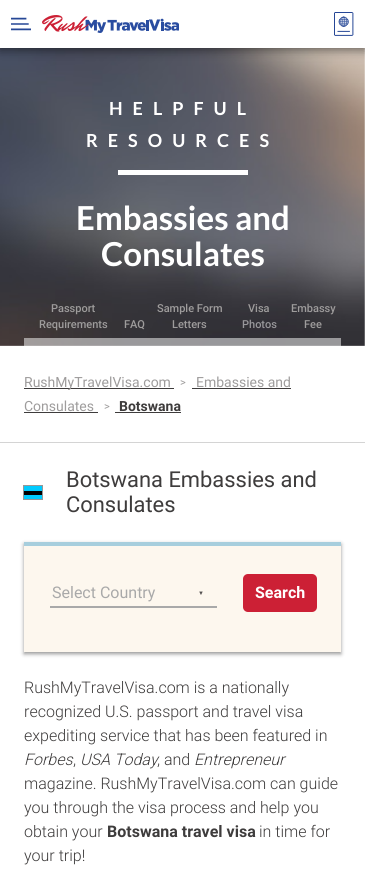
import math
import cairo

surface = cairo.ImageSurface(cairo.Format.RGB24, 365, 875)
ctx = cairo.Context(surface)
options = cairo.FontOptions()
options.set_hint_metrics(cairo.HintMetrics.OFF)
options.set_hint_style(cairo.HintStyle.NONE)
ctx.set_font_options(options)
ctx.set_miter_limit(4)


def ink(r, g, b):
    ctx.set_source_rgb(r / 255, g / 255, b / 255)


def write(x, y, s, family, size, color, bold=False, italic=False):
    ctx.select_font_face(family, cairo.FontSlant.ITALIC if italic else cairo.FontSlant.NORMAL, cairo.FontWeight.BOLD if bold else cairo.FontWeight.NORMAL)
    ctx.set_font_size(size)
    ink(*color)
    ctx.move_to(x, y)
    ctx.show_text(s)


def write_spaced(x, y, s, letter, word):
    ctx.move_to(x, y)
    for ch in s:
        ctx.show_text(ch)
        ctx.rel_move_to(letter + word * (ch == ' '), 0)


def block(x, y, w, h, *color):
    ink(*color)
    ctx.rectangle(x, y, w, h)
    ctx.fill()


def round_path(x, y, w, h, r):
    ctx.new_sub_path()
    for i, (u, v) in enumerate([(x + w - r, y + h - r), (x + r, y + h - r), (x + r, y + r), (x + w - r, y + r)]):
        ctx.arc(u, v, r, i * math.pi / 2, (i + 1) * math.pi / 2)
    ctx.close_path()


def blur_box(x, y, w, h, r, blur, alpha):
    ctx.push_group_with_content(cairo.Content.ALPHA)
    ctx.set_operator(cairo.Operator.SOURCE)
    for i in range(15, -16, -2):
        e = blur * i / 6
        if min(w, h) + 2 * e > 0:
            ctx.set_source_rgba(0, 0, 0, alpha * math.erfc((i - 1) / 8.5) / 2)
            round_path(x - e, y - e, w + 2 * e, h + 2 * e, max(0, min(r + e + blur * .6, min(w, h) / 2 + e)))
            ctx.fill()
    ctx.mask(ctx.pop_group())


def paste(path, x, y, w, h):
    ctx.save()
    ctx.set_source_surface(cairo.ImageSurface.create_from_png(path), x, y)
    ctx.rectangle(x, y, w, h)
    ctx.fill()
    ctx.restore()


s1 = dict(family="Lato", size=33, color=(255, 255, 255), bold=True)
s2 = dict(family="Roboto Medium", size=11, color=(158, 156, 156))
s3 = dict(family="Roboto Medium", size=11, color=(152, 151, 155))
s4 = dict(family="Roboto", size=11, color=(158, 156, 156))
s5 = dict(family="Roboto", size=14, color=(158, 156, 156))
s6 = dict(family="Roboto", size=14, color=(62, 60, 60), bold=True)
s7 = dict(family="Roboto", size=21.9, color=(62, 60, 60))
s8 = dict(family="Roboto", size=16, color=(169, 169, 169))
s9 = dict(family="Roboto", size=16, color=(255, 255, 255), bold=True)
s10 = dict(family="Roboto Light", size=16, color=(62, 60, 60))
s11 = dict(family="Roboto Light", size=16, color=(62, 60, 60), italic=True)
s12 = dict(family="Roboto", size=16, color=(62, 60, 60), bold=True)

ink(255, 255, 255)
ctx.paint()
paste("pic4.png", 0, 48, 365, 298)
ink(0, 0, 0)
blur_box(0, 2, 365, 48, 0, 5, 0.5)
block(0, 0, 365, 48, 255, 255, 255)
paste("pic1.png", 11, 17, 20, 14)
paste("pic2.png", 42, 15, 137, 18)
paste("pic3.png", 334, 12, 20, 24)
ctx.select_font_face("Lato", cairo.FontSlant.NORMAL, cairo.FontWeight.BOLD)
ctx.set_font_size(18)
write_spaced(109, 115, "HELPFUL", 10, 0)
write_spaced(86, 147, "RESOURCES", 10, 0)
block(118, 170, 130, 5, 255, 255, 255)
write(76, 230, "Embassies and", **s1)
write(101, 266, "Consulates", **s1)
ctx.set_source_rgba(1, 1, 1, 0.5)
ctx.rectangle(24, 338, 99, 8)
ctx.fill()
write(51, 312, "Passport", **s2)
write(39, 328, "Requirements", **s2)
ctx.set_source_rgba(1, 1, 1, 0.5)
ctx.rectangle(123, 338, 22, 8)
ctx.fill()
write(124, 328, "FAQ", **s2)
ctx.set_source_rgba(1, 1, 1, 0.5)
ctx.rectangle(145, 338, 88, 8)
ctx.fill()
write(157, 312, "Sample Form", **s2)
write(172, 328, "Letters", **s2)
ctx.set_source_rgba(1, 1, 1, 0.5)
ctx.rectangle(233, 338, 52, 8)
ctx.fill()
write(248, 312, "Visa", **s2)
write(242, 328, "Photos", **s3)
ctx.set_source_rgba(1, 1, 1, 0.5)
ctx.rectangle(285, 338, 56, 8)
ctx.fill()
write(291, 312, "Embassy", **s2)
write(304, 328, "Fee", **s2)
block(0, 442, 365, 1, 212, 212, 212)
write(180, 386, ">", **s4)
write(196, 387, "Embassies and", **s5)
block(192, 388, 99, 1, 62, 60, 60)
write(24, 411, "Consulates", **s5)
block(24, 412, 74, 1, 62, 60, 60)
block(24, 388, 150, 1, 62, 60, 60)
write(24, 387, "RushMyTravelVisa.com", **s5)
write(104, 410, ">", **s4)
write(119, 411, "Botswana", **s6)
block(115, 412, 66, 1, 62, 60, 60)
ctx.rectangle(23.5, 485.5, 19, 14)
ink(151, 151, 151)
ctx.set_line_width(1)
ctx.stroke()
block(24, 486, 18, 13, 0, 203, 255)
block(24, 491, 18, 4, 0, 0, 0)
write(66, 487, "Botswana Embassies and", **s7)
write(66, 512, "Consulates", **s7)
ink(151, 151, 151)
blur_box(24, 544, 317, 110, 0, 2, 1)
block(24, 546, 317, 106, 253, 247, 238)
block(24, 542, 317, 4, 167, 206, 221)
block(50, 606, 167, 2, 169, 169, 169)
write(52, 598, "Select Country", **s8)
ctx.select_font_face("Liberation Sans")
ctx.set_font_size(6)
ink(83, 80, 80)
write_spaced(198, 595, "▼", 6, 0)
ink(204, 32, 53)
round_path(243, 574, 74, 38, 5)
ctx.fill()
write(255, 598, "Search", **s9)
write(24, 693, "RushMyTravelVisa.com is a nationally", **s10)
write(24, 717, "recognized U.S. passport and travel visa", **s10)
write(24, 741, "expediting service that has been featured in", **s10)
write(24, 765, "Forbes", **s11)
write(80, 765, "USA Today", **s11)
write(157, 765, ", and", **s10)
write(194, 765, "Entrepreneur", **s11)
write(73, 765, ",", **s10)
write(24, 789, "magazine. RushMyTravelVisa.com can guide", **s10)
write(24, 813, "you through the visa process and help you", **s10)
write(24, 837, "obtain your", **s10)
write(107, 837, "Botswana travel visa", **s12)
write(259, 837, "in time for", **s10)
write(24, 861, "your trip!", **s10)
surface.write_to_png("screenshot.png")
